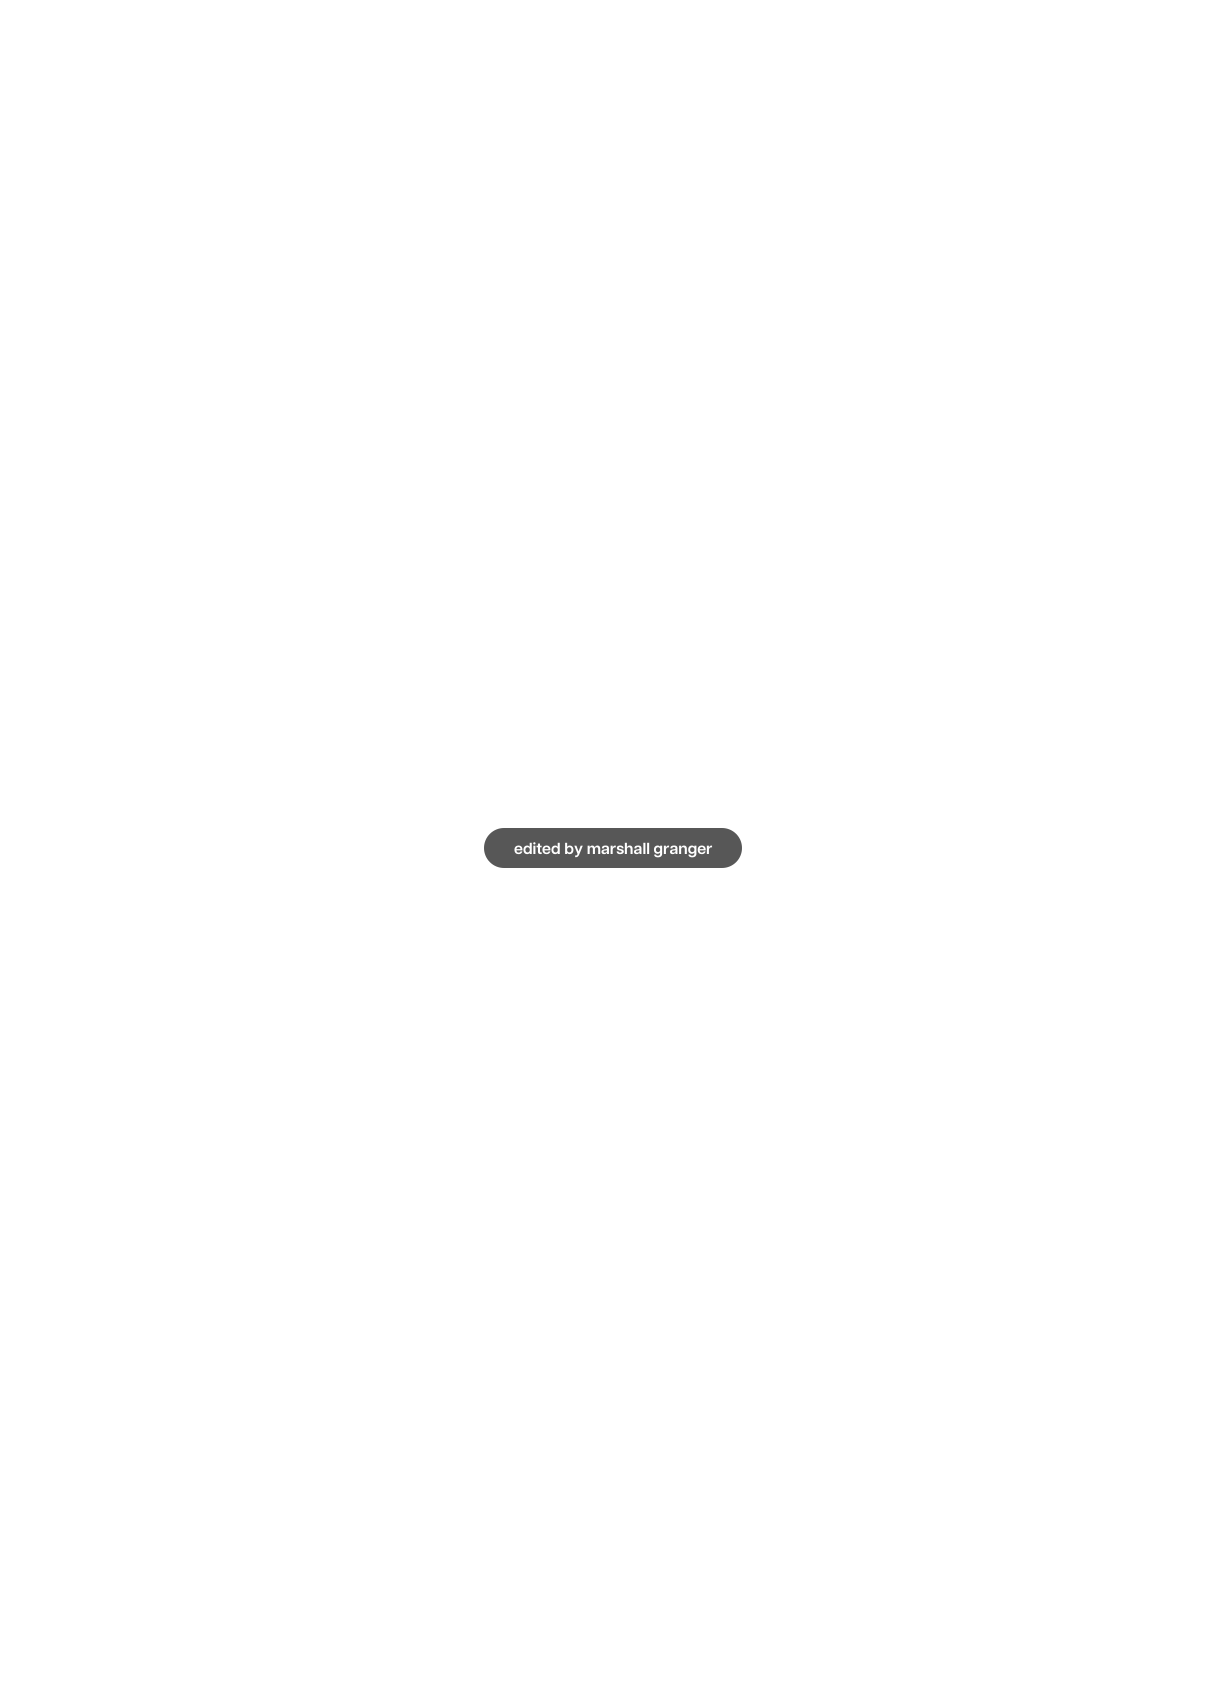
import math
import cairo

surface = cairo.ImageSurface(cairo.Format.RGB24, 1226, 1706)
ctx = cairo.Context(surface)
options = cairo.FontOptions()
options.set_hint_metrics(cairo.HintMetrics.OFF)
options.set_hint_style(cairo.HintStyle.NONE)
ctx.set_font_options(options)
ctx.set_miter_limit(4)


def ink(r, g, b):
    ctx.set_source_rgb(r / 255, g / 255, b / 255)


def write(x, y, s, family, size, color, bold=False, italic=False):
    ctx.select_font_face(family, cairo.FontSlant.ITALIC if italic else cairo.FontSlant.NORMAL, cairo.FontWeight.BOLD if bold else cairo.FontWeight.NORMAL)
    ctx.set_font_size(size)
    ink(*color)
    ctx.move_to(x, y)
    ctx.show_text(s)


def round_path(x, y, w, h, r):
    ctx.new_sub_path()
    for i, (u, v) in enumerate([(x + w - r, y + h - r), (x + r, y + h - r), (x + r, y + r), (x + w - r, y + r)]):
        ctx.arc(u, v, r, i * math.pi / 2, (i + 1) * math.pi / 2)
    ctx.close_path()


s1 = dict(family="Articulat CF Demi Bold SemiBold", size=16, color=(255, 255, 255))

ink(255, 255, 255)
ctx.paint()
ink(87, 87, 87)
round_path(484, 828, 258, 40, 20)
ctx.fill()
write(514, 854, "edited by marshall granger", **s1)
surface.write_to_png("screenshot.png")
